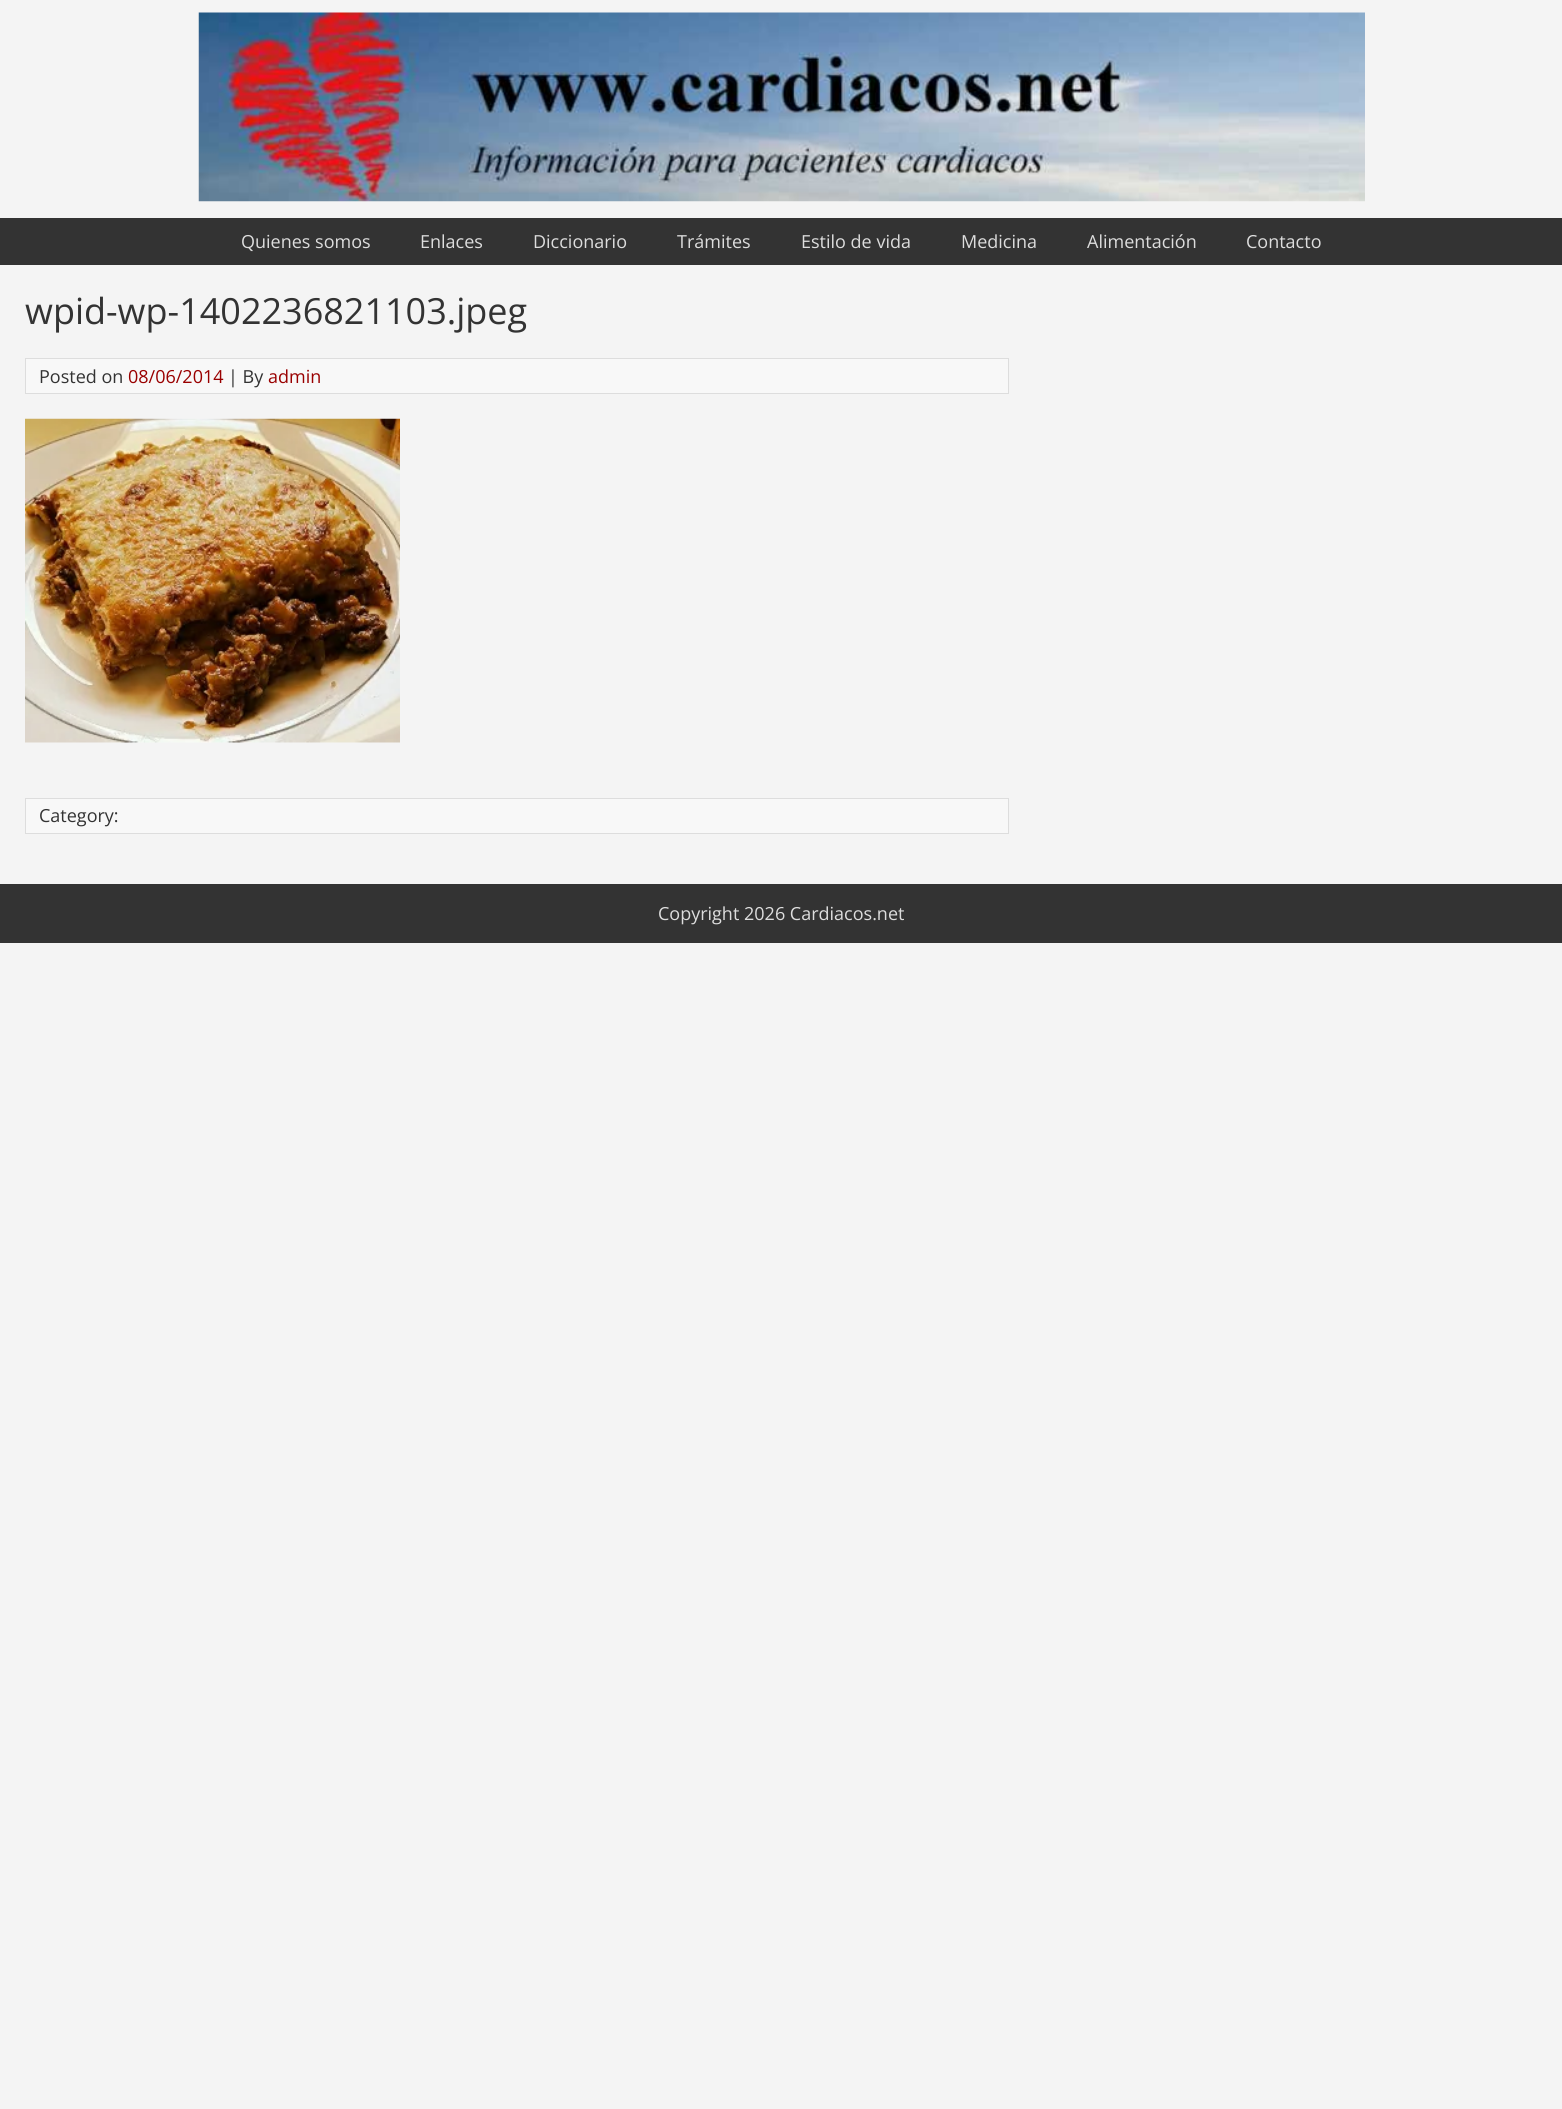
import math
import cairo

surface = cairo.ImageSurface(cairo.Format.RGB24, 1562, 2109)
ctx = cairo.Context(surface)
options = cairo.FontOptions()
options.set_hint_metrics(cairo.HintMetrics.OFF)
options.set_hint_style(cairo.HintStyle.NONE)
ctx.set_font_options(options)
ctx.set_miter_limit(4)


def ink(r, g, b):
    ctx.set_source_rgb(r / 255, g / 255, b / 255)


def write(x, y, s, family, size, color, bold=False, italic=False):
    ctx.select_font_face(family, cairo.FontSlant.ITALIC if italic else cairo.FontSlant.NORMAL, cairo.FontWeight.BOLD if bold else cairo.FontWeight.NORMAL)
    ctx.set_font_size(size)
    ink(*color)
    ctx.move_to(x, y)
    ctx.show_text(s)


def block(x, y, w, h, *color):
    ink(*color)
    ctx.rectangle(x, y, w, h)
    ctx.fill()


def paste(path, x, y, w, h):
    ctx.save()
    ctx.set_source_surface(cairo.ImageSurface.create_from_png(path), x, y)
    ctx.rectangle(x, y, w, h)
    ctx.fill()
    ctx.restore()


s1 = dict(family="Open Sans", size=18, color=(221, 221, 221))
s2 = dict(family="Open Sans", size=36, color=(51, 51, 51))
s3 = dict(family="Open Sans", size=18, color=(51, 51, 51))
s4 = dict(family="Open Sans", size=18, color=(153, 0, 0))

ink(244, 244, 244)
ctx.paint()
paste("pic1.png", 198, 12, 1167, 190)
block(0, 218, 1562, 47, 51, 51, 51)
write(241, 248, "Quienes somos", **s1)
write(420, 248, "Enlaces", **s1)
write(533, 248, "Diccionario", **s1)
write(677, 248, "Trámites", **s1)
write(801, 248, "Estilo de vida", **s1)
write(961, 248, "Medicina", **s1)
write(1087, 248, "Alimentación", **s1)
write(1246, 248, "Contacto", **s1)
write(25, 324, "wpid-wp-1402236821103.jpeg", **s2)
ink(248, 248, 248)
ctx.rectangle(25.5, 358.5, 983, 35)
ctx.fill_preserve()
ink(221, 221, 221)
ctx.set_line_width(1)
ctx.stroke()
write(39, 383, "Posted on", **s3)
write(128, 383, "08/06/2014", **s4)
write(228, 383, "| By", **s3)
write(268, 383, "admin", **s4)
paste("pic2.png", 25, 418, 375, 325)
ink(248, 248, 248)
ctx.rectangle(25.5, 798.5, 983, 35)
ctx.fill_preserve()
ink(221, 221, 221)
ctx.stroke()
write(39, 822, "Category:", **s3)
block(0, 884, 1562, 59, 51, 51, 51)
write(658, 920, "Copyright 2026 Cardiacos.net", **s1)
surface.write_to_png("screenshot.png")
